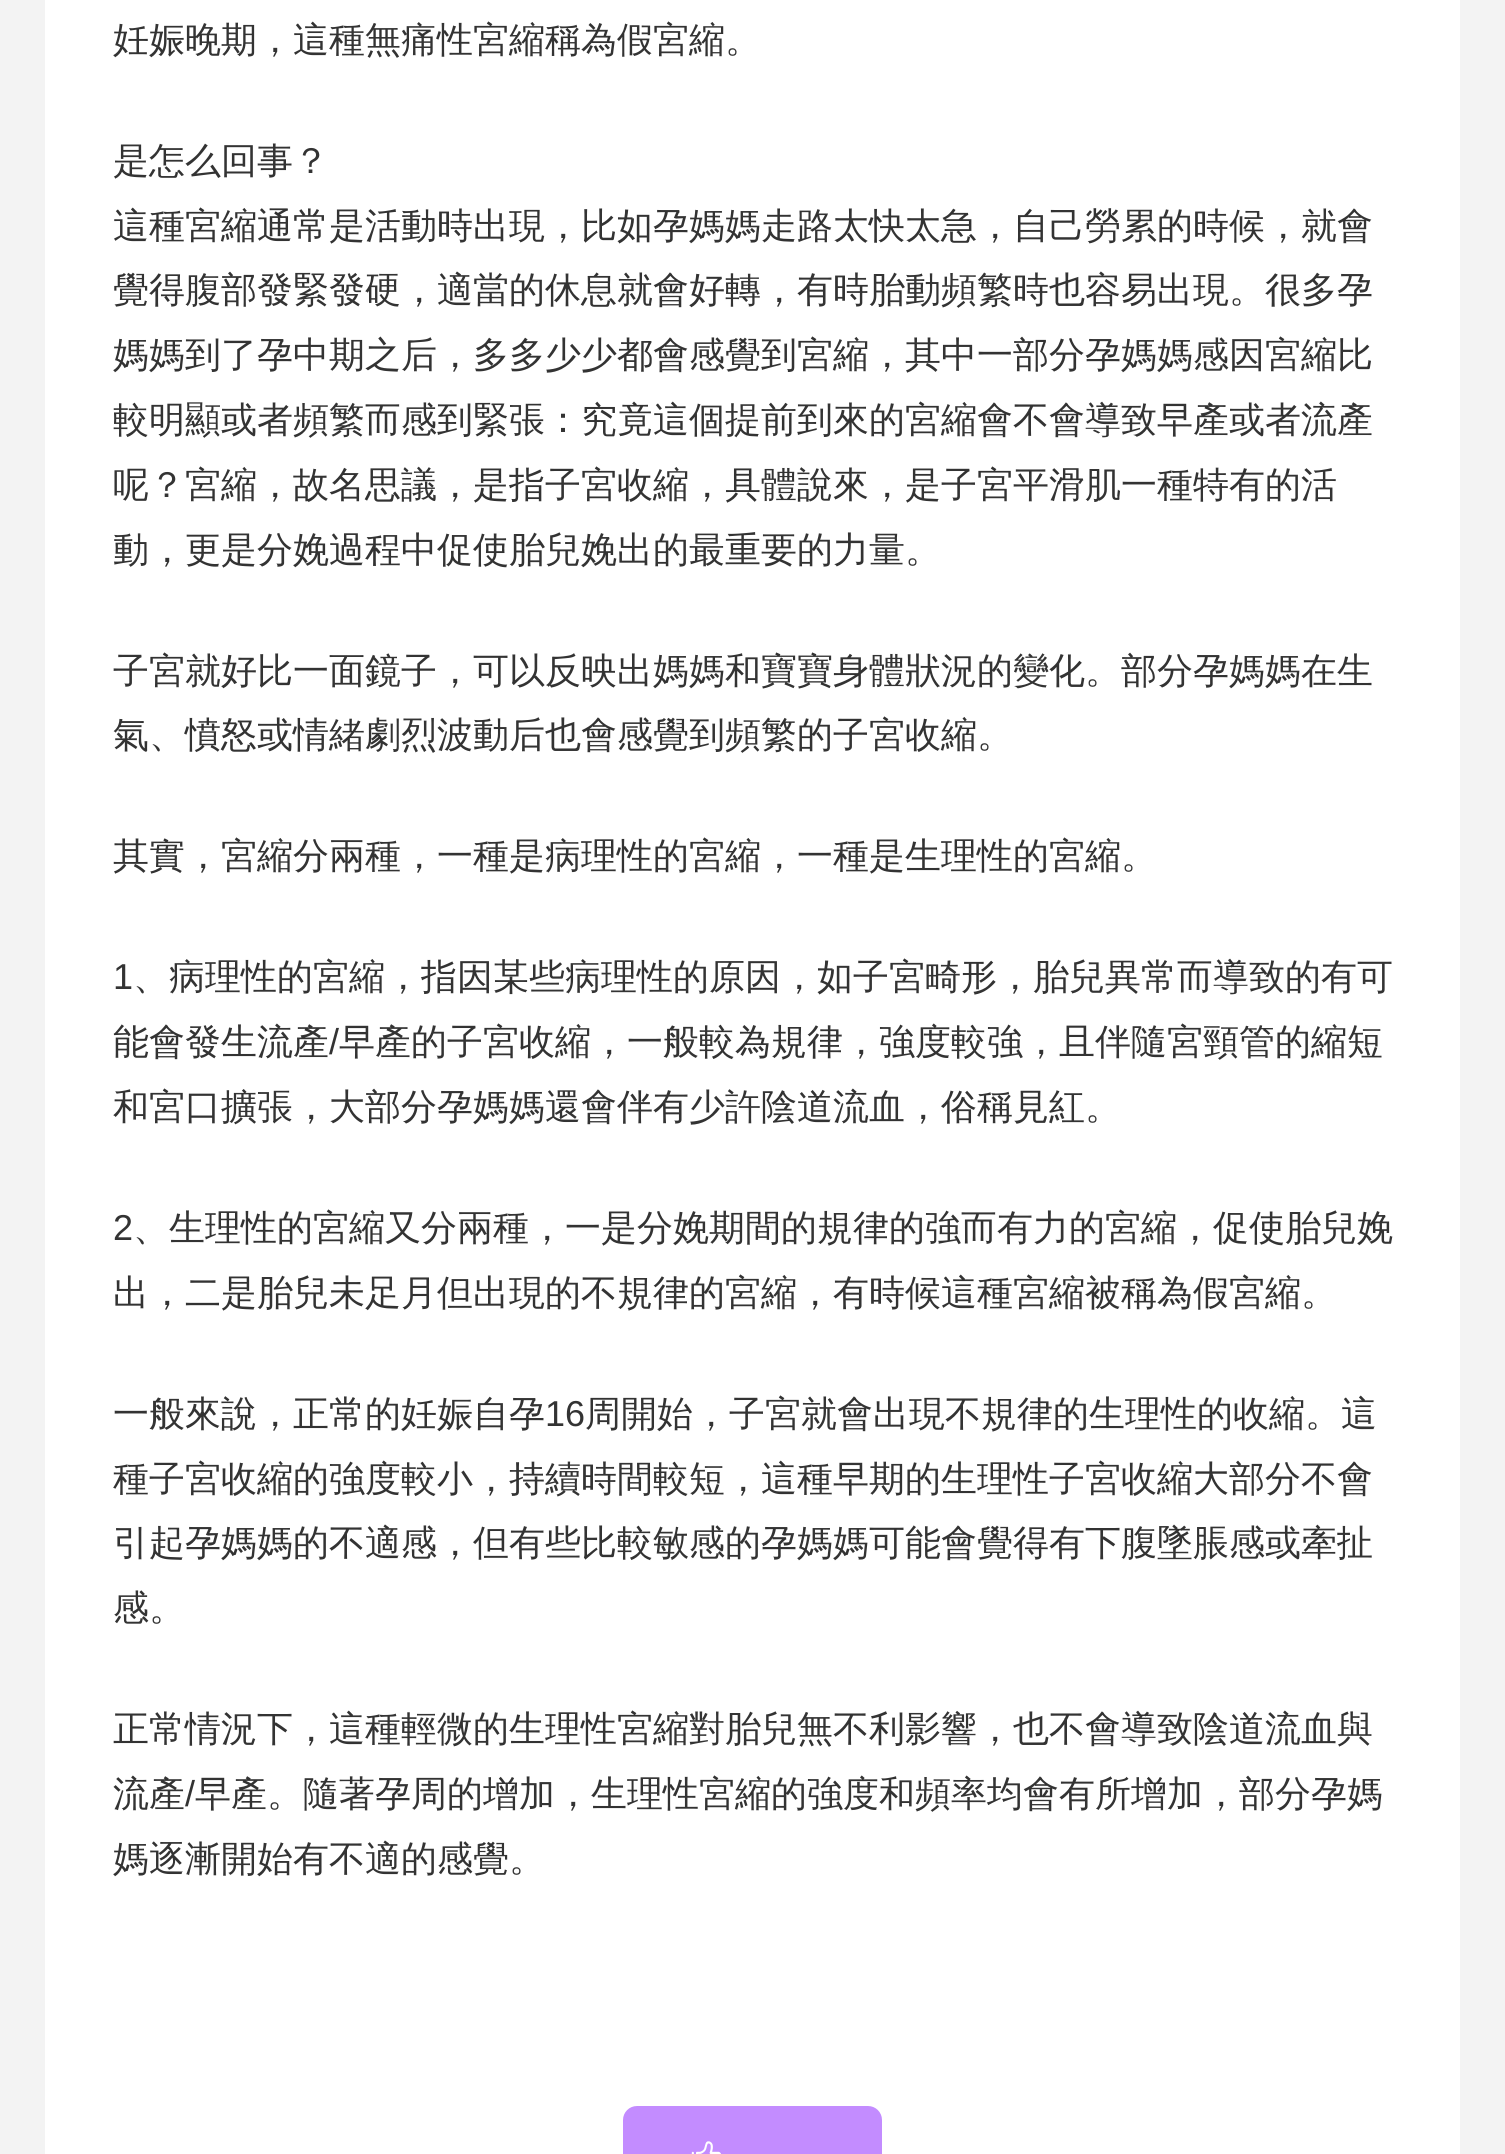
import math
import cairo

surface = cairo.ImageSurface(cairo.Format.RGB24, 1505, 2154)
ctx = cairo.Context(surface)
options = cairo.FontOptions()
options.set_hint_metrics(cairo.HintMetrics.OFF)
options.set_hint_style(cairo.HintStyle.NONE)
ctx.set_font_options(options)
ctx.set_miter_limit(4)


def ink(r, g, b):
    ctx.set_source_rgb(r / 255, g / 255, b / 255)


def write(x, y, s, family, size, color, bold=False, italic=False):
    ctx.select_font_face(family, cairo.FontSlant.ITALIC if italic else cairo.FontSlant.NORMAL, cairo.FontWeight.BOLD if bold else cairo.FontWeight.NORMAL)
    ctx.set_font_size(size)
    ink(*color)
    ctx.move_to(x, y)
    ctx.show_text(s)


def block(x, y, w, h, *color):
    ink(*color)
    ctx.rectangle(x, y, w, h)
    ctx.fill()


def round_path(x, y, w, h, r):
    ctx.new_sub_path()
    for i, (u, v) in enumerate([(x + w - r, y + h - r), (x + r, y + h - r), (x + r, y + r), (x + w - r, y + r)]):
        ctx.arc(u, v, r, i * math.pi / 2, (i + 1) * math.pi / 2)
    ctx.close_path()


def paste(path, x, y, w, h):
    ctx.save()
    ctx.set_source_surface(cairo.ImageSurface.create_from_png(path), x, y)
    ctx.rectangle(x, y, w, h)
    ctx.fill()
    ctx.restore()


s1 = dict(family="WenQuanYi Zen Hei Medium", size=36, color=(51, 51, 51))
s2 = dict(family="Liberation Sans", size=36, color=(51, 51, 51))

ink(243, 243, 243)
ctx.paint()
block(45, 0, 1415, 2154, 255, 255, 255)
ink(195, 140, 255)
round_path(623, 2106, 259, 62, 14)
ctx.fill()
paste("pic1.png", 691, 2141, 30, 13)
write(113, 52, "妊娠晚期，這種無痛性宮縮稱為假宮縮。", **s1)
write(113, 173, "是怎么回事？", **s1)
write(113, 238, "這種宮縮通常是活動時出現，比如孕媽媽走路太快太急，自己勞累的時候，就會", **s1)
write(113, 302, "覺得腹部發緊發硬，適當的休息就會好轉，有時胎動頻繁時也容易出現。很多孕", **s1)
write(113, 367, "媽媽到了孕中期之后，多多少少都會感覺到宮縮，其中一部分孕媽媽感因宮縮比", **s1)
write(113, 432, "較明顯或者頻繁而感到緊張：究竟這個提前到來的宮縮會不會導致早產或者流產", **s1)
write(113, 497, "呢？宮縮，故名思議，是指子宮收縮，具體說來，是子宮平滑肌一種特有的活", **s1)
write(113, 562, "動，更是分娩過程中促使胎兒娩出的最重要的力量。", **s1)
write(113, 683, "子宮就好比一面鏡子，可以反映出媽媽和寶寶身體狀況的變化。部分孕媽媽在生", **s1)
write(113, 747, "氣、憤怒或情緒劇烈波動后也會感覺到頻繁的子宮收縮。", **s1)
write(113, 868, "其實，宮縮分兩種，一種是病理性的宮縮，一種是生理性的宮縮。", **s1)
write(113, 989, "1", **s2)
write(133, 989, "、病理性的宮縮，指因某些病理性的原因，如子宮畸形，胎兒異常而導致的有可", **s1)
write(113, 1054, "能會發生流產", **s1)
write(329, 1054, "/", **s2)
write(339, 1054, "早產的子宮收縮，一般較為規律，強度較強，且伴隨宮頸管的縮短", **s1)
write(113, 1119, "和宮口擴張，大部分孕媽媽還會伴有少許陰道流血，俗稱見紅。", **s1)
write(113, 1240, "2", **s2)
write(133, 1240, "、生理性的宮縮又分兩種，一是分娩期間的規律的強而有力的宮縮，促使胎兒娩", **s1)
write(113, 1305, "出，二是胎兒未足月但出現的不規律的宮縮，有時候這種宮縮被稱為假宮縮。", **s1)
write(113, 1426, "一般來說，正常的妊娠自孕", **s1)
write(545, 1426, "16", **s2)
write(585, 1426, "周開始，子宮就會出現不規律的生理性的收縮。這", **s1)
write(113, 1491, "種子宮收縮的強度較小，持續時間較短，這種早期的生理性子宮收縮大部分不會", **s1)
write(113, 1555, "引起孕媽媽的不適感，但有些比較敏感的孕媽媽可能會覺得有下腹墜脹感或牽扯", **s1)
write(113, 1620, "感。", **s1)
write(113, 1741, "正常情況下，這種輕微的生理性宮縮對胎兒無不利影響，也不會導致陰道流血與", **s1)
write(113, 1806, "流產", **s1)
write(185, 1806, "/", **s2)
write(195, 1806, "早產。隨著孕周的增加，生理性宮縮的強度和頻率均會有所增加，部分孕媽", **s1)
write(113, 1871, "媽逐漸開始有不適的感覺。", **s1)
surface.write_to_png("screenshot.png")
